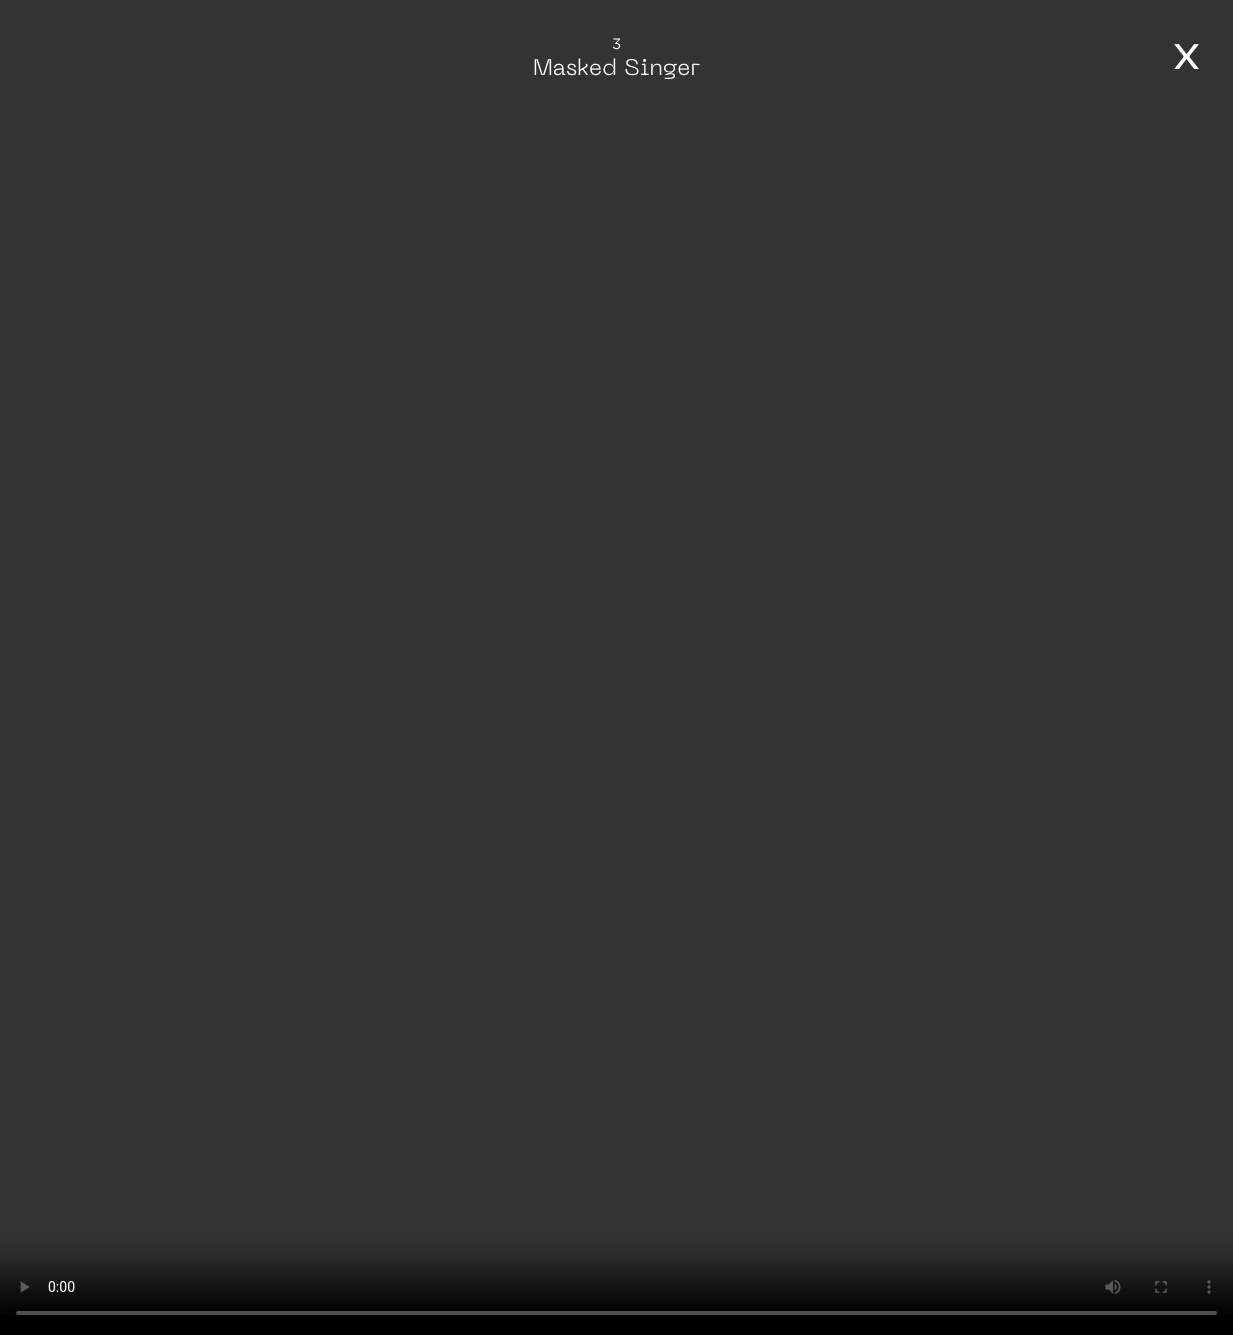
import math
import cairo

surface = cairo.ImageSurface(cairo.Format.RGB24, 1233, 1335)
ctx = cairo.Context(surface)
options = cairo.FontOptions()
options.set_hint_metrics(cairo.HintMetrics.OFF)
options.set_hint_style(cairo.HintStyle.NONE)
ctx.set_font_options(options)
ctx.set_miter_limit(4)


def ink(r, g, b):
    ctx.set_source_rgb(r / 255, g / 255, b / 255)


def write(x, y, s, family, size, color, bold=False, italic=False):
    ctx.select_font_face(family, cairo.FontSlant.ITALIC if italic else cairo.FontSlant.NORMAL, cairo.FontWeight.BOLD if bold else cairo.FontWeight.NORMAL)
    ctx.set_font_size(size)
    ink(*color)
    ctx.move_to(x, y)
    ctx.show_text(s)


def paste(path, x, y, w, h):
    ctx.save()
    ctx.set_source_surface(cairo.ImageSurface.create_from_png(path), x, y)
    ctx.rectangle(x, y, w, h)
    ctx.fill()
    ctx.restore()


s1 = dict(family="Gotham", size=15, color=(255, 255, 255))
s2 = dict(family="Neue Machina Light", size=22.5, color=(255, 255, 255))
s3 = dict(family="Neue Machina", size=50, color=(255, 255, 255))

ink(0, 0, 0)
ctx.paint()
paste("pic1.png", 0, 0, 1233, 1315)
write(612, 49, "3", **s1)
write(533, 75, "Masked Singer", **s2)
write(1172, 69, "x", **s3)
surface.write_to_png("screenshot.png")
